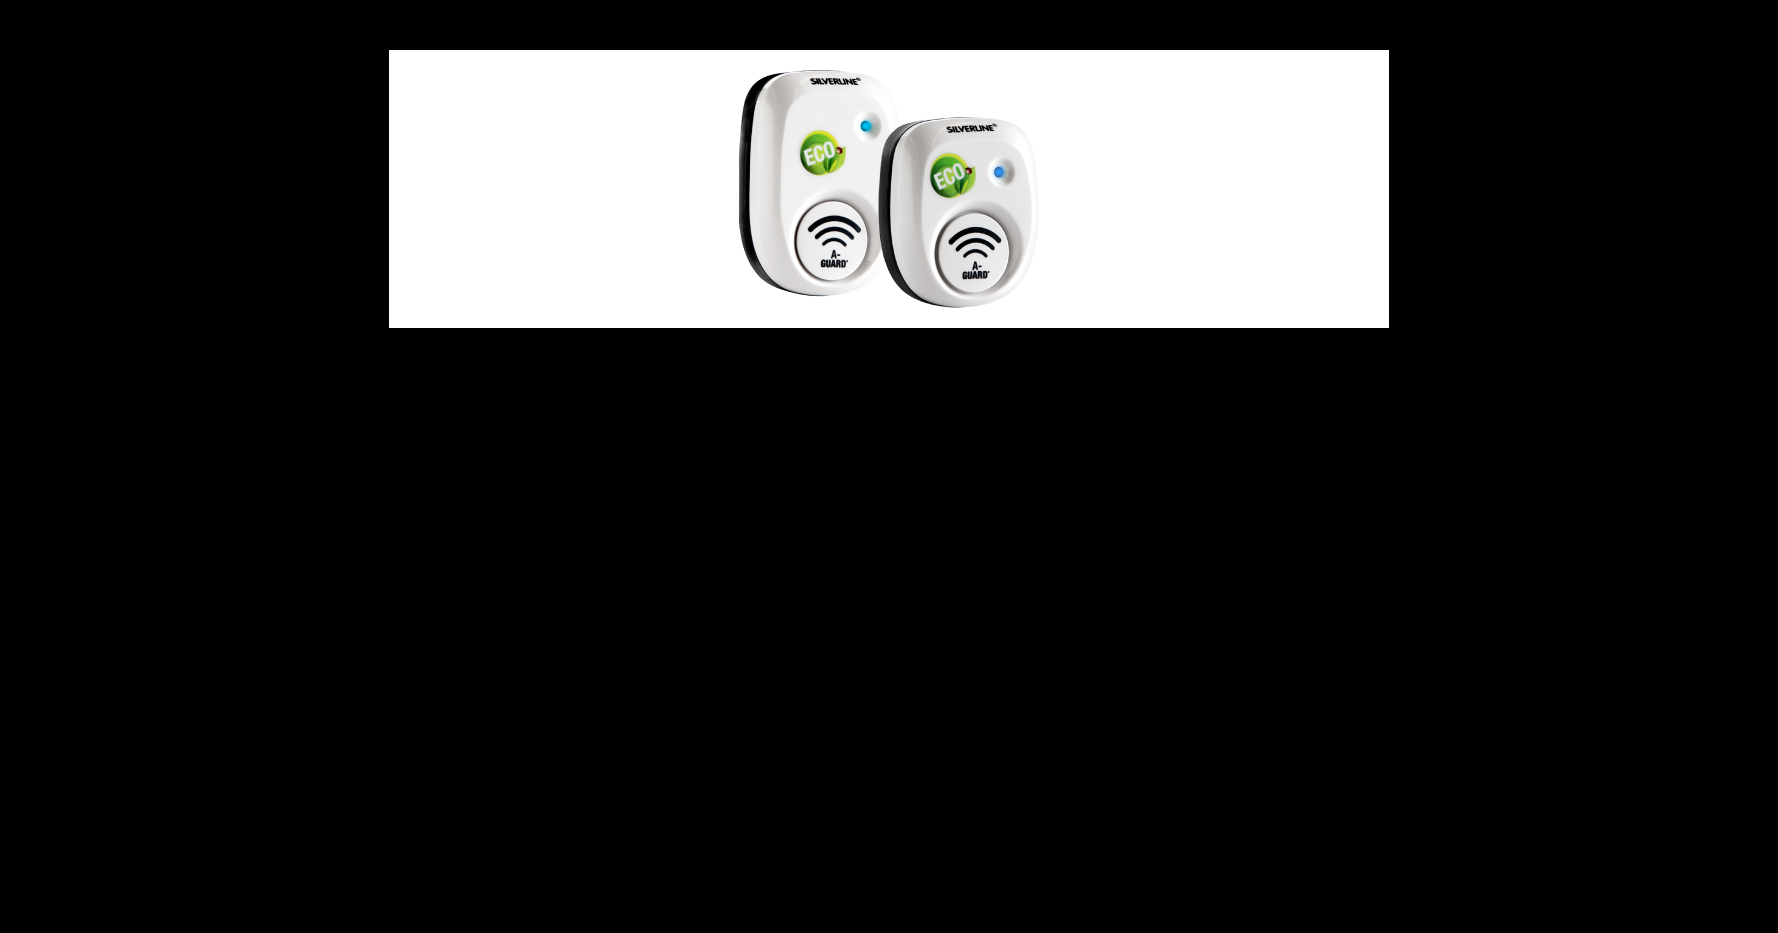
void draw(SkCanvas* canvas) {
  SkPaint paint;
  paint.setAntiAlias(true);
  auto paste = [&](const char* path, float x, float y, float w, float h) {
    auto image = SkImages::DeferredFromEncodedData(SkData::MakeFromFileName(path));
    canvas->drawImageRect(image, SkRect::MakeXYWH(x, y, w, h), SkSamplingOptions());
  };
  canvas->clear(0xff000000);
  paint.setColor(0xffffffff);
  canvas->drawRect(SkRect::MakeXYWH(389, 50, 1000, 278), paint);
  paste("img/1.png", 739, 70, 300, 238);
}
